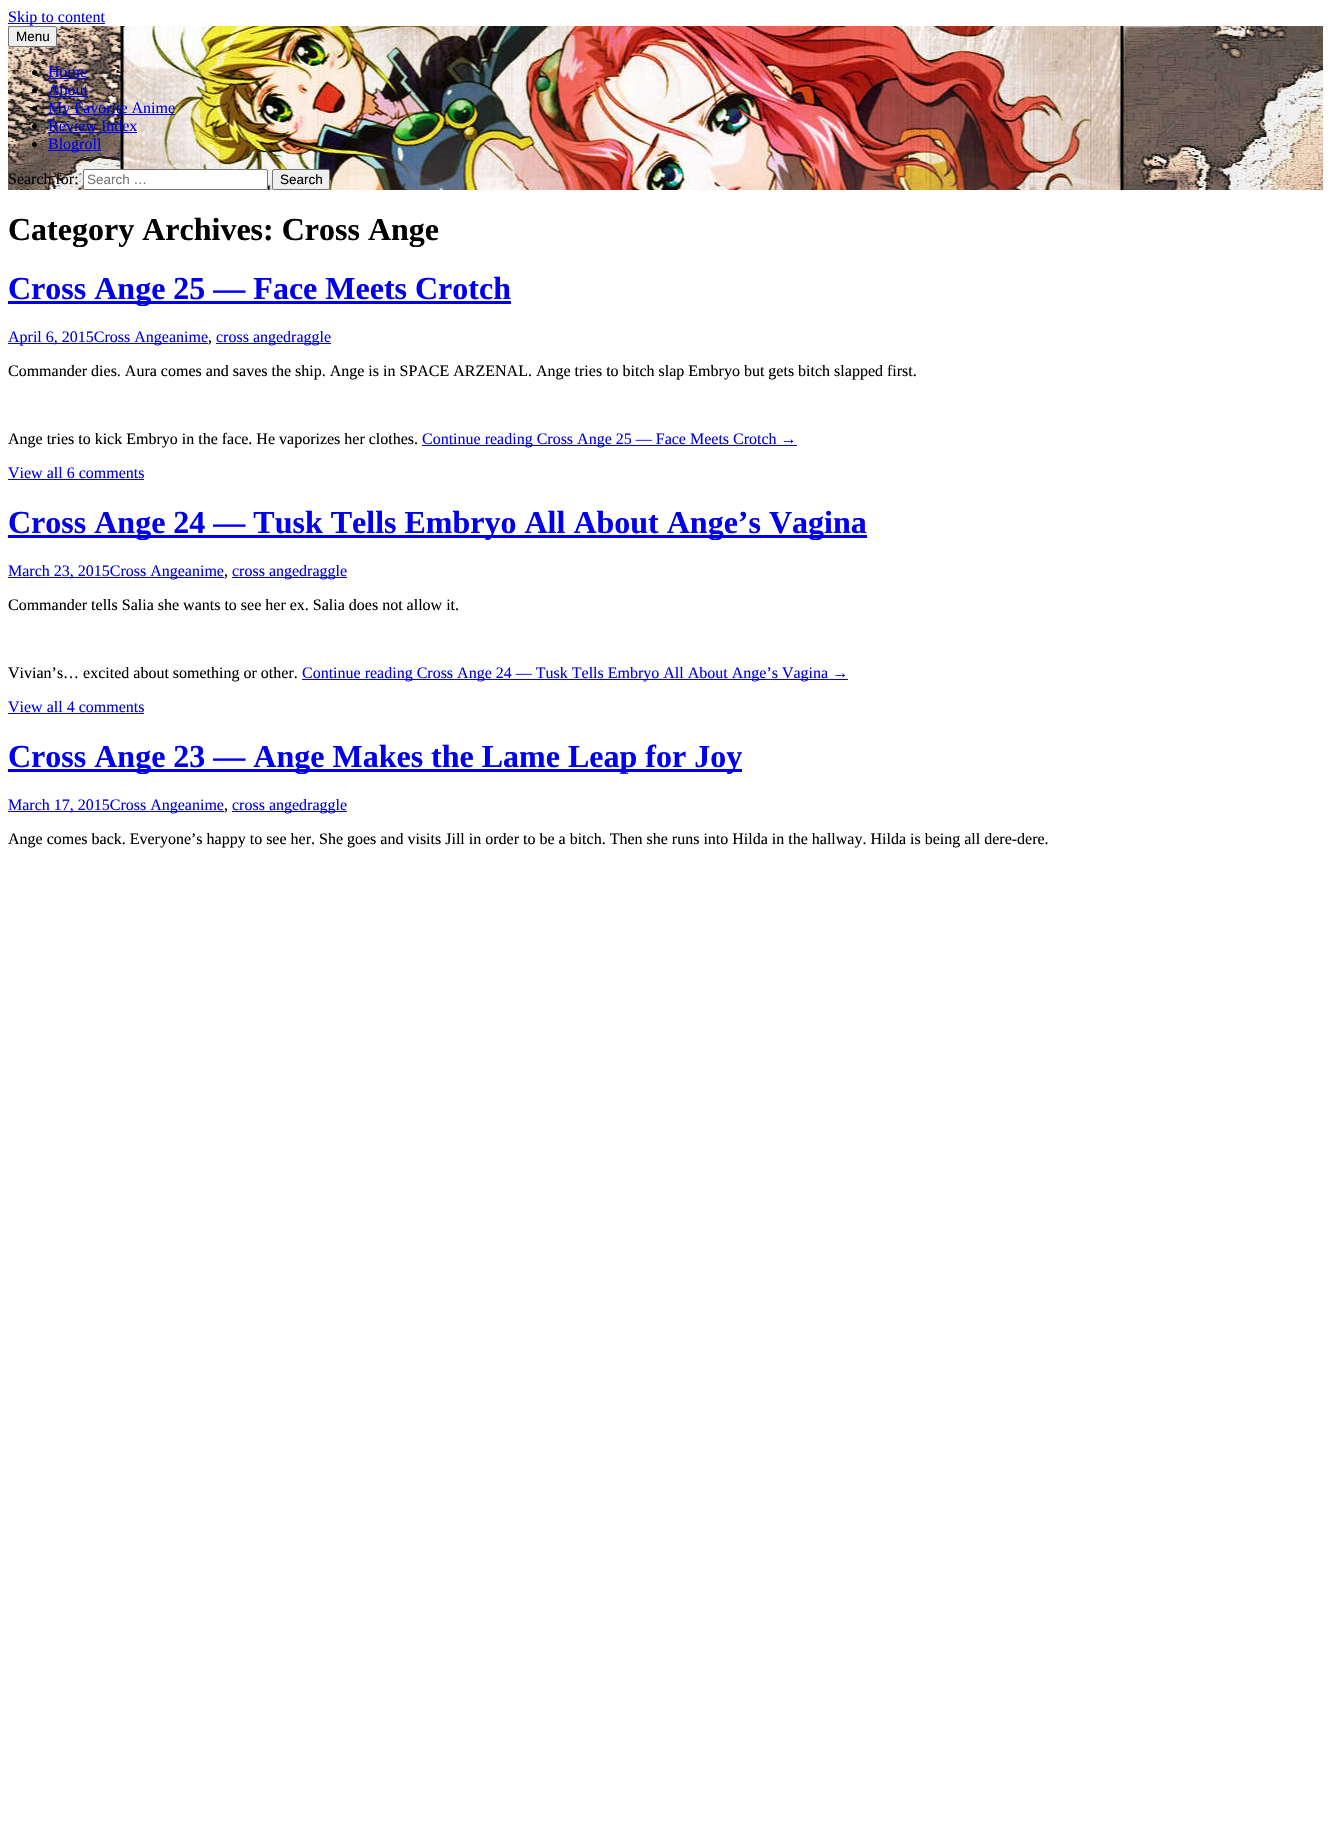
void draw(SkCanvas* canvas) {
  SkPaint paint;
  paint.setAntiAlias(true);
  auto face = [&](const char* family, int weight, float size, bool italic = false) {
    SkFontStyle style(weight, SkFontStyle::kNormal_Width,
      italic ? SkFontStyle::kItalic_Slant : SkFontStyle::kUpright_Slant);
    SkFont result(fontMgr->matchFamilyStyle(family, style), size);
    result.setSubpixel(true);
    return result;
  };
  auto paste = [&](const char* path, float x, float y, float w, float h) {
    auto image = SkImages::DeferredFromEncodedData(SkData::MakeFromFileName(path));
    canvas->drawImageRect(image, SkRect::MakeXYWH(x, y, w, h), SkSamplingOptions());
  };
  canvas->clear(0xffffffff);
  paint.setColor(0xff0000ee);
  canvas->drawRect(SkRect::MakeXYWH(8, 23, 97, 1), paint);
  paste("img/1.png", 8, 26, 1315, 164);
  paint.setColor(0xffefefef);
  canvas->drawRoundRect(SkRect::MakeXYWH(8.5f, 26.5f, 48, 20), 1.5f, 1.5f, paint);
  paint.setStroke(true);
  paint.setStrokeWidth(1);
  paint.setColor(0xff767676);
  canvas->drawRoundRect(SkRect::MakeXYWH(8.5f, 26.5f, 48, 20), 1.5f, 1.5f, paint);
  paint.setStroke(false);
  paint.setColor(0xff000000);
  canvas->drawCircle(34.5f, 72.5f, 2.5f, paint);
  paint.setColor(0xff0000ee);
  canvas->drawRect(SkRect::MakeXYWH(48, 78, 39, 1), paint);
  paint.setColor(0xff000000);
  canvas->drawCircle(34.5f, 90.5f, 2.5f, paint);
  paint.setColor(0xff0000ee);
  canvas->drawRect(SkRect::MakeXYWH(48, 96, 40, 1), paint);
  paint.setColor(0xff000000);
  canvas->drawCircle(34.5f, 108.5f, 2.5f, paint);
  paint.setColor(0xff0000ee);
  canvas->drawRect(SkRect::MakeXYWH(48, 114, 127, 1), paint);
  paint.setColor(0xff000000);
  canvas->drawCircle(34.5f, 126.5f, 2.5f, paint);
  paint.setColor(0xff0000ee);
  canvas->drawRect(SkRect::MakeXYWH(48, 132, 89, 1), paint);
  paint.setColor(0xff000000);
  canvas->drawCircle(34.5f, 144.5f, 2.5f, paint);
  paint.setColor(0xff0000ee);
  canvas->drawRect(SkRect::MakeXYWH(48, 150, 53, 1), paint);
  paint.setColor(0xffffffff);
  canvas->drawRoundRect(SkRect::MakeXYWH(83.5f, 169.5f, 184, 20), 1.5f, 1.5f, paint);
  paint.setStroke(true);
  paint.setColor(0xff767676);
  canvas->drawRoundRect(SkRect::MakeXYWH(83.5f, 169.5f, 184, 20), 1.5f, 1.5f, paint);
  paint.setStroke(false);
  paint.setColor(0xffefefef);
  canvas->drawRoundRect(SkRect::MakeXYWH(272.5f, 169.5f, 57, 20), 1.5f, 1.5f, paint);
  paint.setStroke(true);
  paint.setColor(0xff767676);
  canvas->drawRoundRect(SkRect::MakeXYWH(272.5f, 169.5f, 57, 20), 1.5f, 1.5f, paint);
  paint.setStroke(false);
  {
    const struct { float x, y, w, h; SkColor color; } items[] = {
      {8, 301, 503, 3, 0xff0000ee},
      {8, 343, 200, 1, 0xff0000ee},
      {216, 343, 115, 1, 0xff0000ee},
      {422, 445, 375, 1, 0xff0000ee},
      {8, 479, 136, 1, 0xff0000ee},
      {8, 535, 859, 3, 0xff0000ee},
      {8, 577, 216, 1, 0xff0000ee},
      {232, 577, 115, 1, 0xff0000ee},
      {302, 679, 546, 1, 0xff0000ee},
      {8, 713, 136, 1, 0xff0000ee},
      {8, 769, 734, 3, 0xff0000ee},
      {8, 811, 216, 1, 0xff0000ee},
      {232, 811, 115, 1, 0xff0000ee},
    };
    for (auto [x, y, w, h, color] : items) {
      paint.setColor(color);
      canvas->drawRect(SkRect::MakeXYWH(x, y, w, h), paint);
    }
  }
  auto f0 = face("Liberation Serif", 400, 16);
  canvas->drawString("Skip to content", 8, 22, f0, paint);
  auto f1 = face("Liberation Sans", 400, 13.5f);
  paint.setColor(0xff000000);
  canvas->drawString("Menu", 16, 41, f1, paint);
  paint.setColor(0xff0000ee);
  {
    const struct { const char* s; float x, y; } items[] = {
      {"Home", 48, 77},
      {"About", 48, 95},
      {"My Favorite Anime", 48, 113},
      {"Review Index", 48, 131},
      {"Blogroll", 48, 149},
    };
    for (auto [s, x, y] : items) {
      canvas->drawString(s, x, y, f0, paint);
    }
  }
  paint.setColor(0xff000000);
  canvas->drawString("Search for:", 8, 184, f0, paint);
  paint.setColor(0xff757575);
  canvas->drawString("Search …", 87, 184, f1, paint);
  paint.setColor(0xff000000);
  canvas->drawString("Search", 280, 184, f1, paint);
  auto f2 = face("Liberation Serif", 700, 32);
  canvas->drawString("Category Archives: Cross Ange", 8, 240, f2, paint);
  paint.setColor(0xff0000ee);
  canvas->drawString("Cross Ange 25 — Face Meets Crotch", 8, 299, f2, paint);
  canvas->drawString("April 6, 2015Cross Angeanime", 8, 342, f0, paint);
  paint.setColor(0xff000000);
  canvas->drawString(",", 208, 342, f0, paint);
  paint.setColor(0xff0000ee);
  canvas->drawString("cross angedraggle", 216, 342, f0, paint);
  paint.setColor(0xff000000);
  canvas->drawString("Commander dies. Aura comes and saves the ship. Ange is in SPACE ARZENAL. Ange tries to bitch slap Embryo but gets bitch slapped first.", 8, 376, f0, paint);
  canvas->drawString("Ange tries to kick Embryo in the face. He vaporizes her clothes.", 8, 444, f0, paint);
  paint.setColor(0xff0000ee);
  canvas->drawString("Continue reading Cross Ange 25 — Face Meets Crotch →", 422, 444, f0, paint);
  canvas->drawString("View all 6 comments", 8, 478, f0, paint);
  canvas->drawString("Cross Ange 24 — Tusk Tells Embryo All About Ange’s Vagina", 8, 533, f2, paint);
  canvas->drawString("March 23, 2015Cross Angeanime", 8, 576, f0, paint);
  paint.setColor(0xff000000);
  canvas->drawString(",", 224, 576, f0, paint);
  paint.setColor(0xff0000ee);
  canvas->drawString("cross angedraggle", 232, 576, f0, paint);
  paint.setColor(0xff000000);
  canvas->drawString("Commander tells Salia she wants to see her ex. Salia does not allow it.", 8, 610, f0, paint);
  canvas->drawString("Vivian’s… excited about something or other.", 8, 678, f0, paint);
  paint.setColor(0xff0000ee);
  canvas->drawString("Continue reading Cross Ange 24 — Tusk Tells Embryo All About Ange’s Vagina →", 302, 678, f0, paint);
  canvas->drawString("View all 4 comments", 8, 712, f0, paint);
  canvas->drawString("Cross Ange 23 — Ange Makes the Lame Leap for Joy", 8, 767, f2, paint);
  canvas->drawString("March 17, 2015Cross Angeanime", 8, 810, f0, paint);
  paint.setColor(0xff000000);
  canvas->drawString(",", 224, 810, f0, paint);
  paint.setColor(0xff0000ee);
  canvas->drawString("cross angedraggle", 232, 810, f0, paint);
  paint.setColor(0xff000000);
  canvas->drawString("Ange comes back. Everyone’s happy to see her. She goes and visits Jill in order to be a bitch. Then she runs into Hilda in the hallway. Hilda is being all dere-dere.", 8, 844, f0, paint);
}
